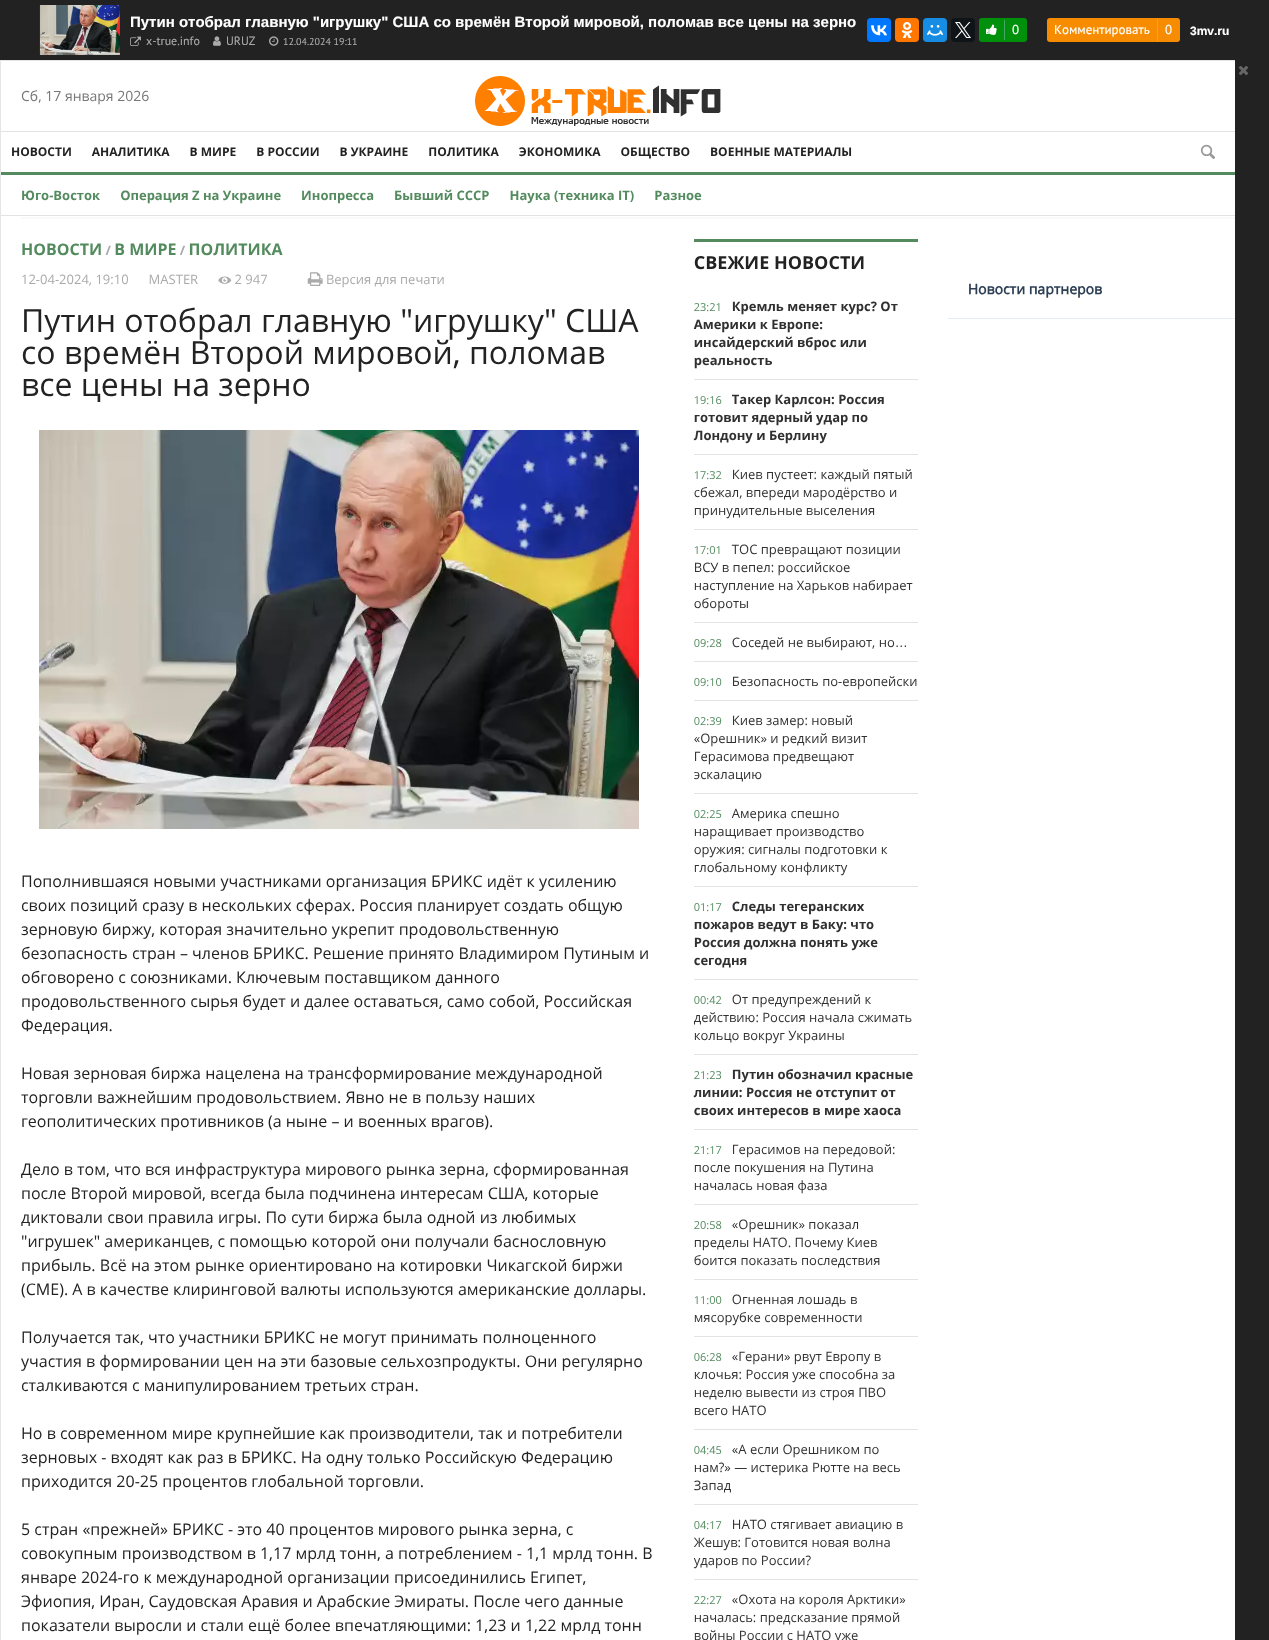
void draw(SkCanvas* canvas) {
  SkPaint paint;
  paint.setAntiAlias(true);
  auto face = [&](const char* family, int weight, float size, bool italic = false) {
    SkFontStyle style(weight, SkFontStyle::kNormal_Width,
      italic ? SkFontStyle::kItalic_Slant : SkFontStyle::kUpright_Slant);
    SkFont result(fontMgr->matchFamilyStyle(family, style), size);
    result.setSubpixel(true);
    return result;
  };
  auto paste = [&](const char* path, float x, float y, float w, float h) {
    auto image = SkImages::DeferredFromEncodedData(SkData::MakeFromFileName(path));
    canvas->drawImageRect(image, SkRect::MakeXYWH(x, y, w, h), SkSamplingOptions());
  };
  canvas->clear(0xffe6e5e5);
  paint.setColor(0xff222222);
  canvas->drawRect(SkRect::MakeXYWH(0, 0, 1269, 60), paint);
  paste("img/1.png", 39, 5, 81, 50);
  paint.setColor(0xff0077ff);
  canvas->drawRoundRect(SkRect::MakeXYWH(867, 18, 24, 24), 4, 4, paint);
  paste("img/2.png", 871, 25, 16, 11);
  paint.setColor(0xffff7700);
  canvas->drawRoundRect(SkRect::MakeXYWH(895, 18, 24, 24), 4, 4, paint);
  paste("img/3.png", 901, 22, 12, 16);
  paint.setColor(0xff168de2);
  canvas->drawRoundRect(SkRect::MakeXYWH(923, 18, 24, 24), 4, 4, paint);
  paste("img/4.png", 927, 25, 16, 11);
  paint.setColor(0xff0f1419);
  canvas->drawRoundRect(SkRect::MakeXYWH(951, 18, 24, 24), 4, 4, paint);
  paste("img/5.png", 955, 22, 16, 16);
  paint.setColor(0xff00900c);
  canvas->drawRoundRect(SkRect::MakeXYWH(979, 18, 48, 24), 3, 3, paint);
  paint.setColor(0xff46a764);
  canvas->drawRect(SkRect::MakeXYWH(1004, 20, 1, 20), paint);
  paste("img/6.png", 986, 24, 11, 11);
  paint.setColor(0xfff88c00);
  canvas->drawRoundRect(SkRect::MakeXYWH(1047, 18, 133, 24), 3, 3, paint);
  paint.setColor(0xffeaa04c);
  canvas->drawRect(SkRect::MakeXYWH(1157, 19, 1, 22), paint);
  paste("img/7.png", 130, 36, 11, 10);
  paste("img/8.png", 213, 36, 8, 10);
  paste("img/9.png", 269, 36, 10, 10);
  paste("img/10.png", 1, 61, 1234, 1579);
  paint.setColor(0xff222222);
  canvas->drawRect(SkRect::MakeXYWH(1235, 60, 34, 1580), paint);
  paste("img/11.png", 1239, 66, 9, 9);
  auto f0 = face("Liberation Sans", 700, 15);
  paint.setColor(0xffffffff);
  canvas->drawString("Путин отобрал главную \"игрушку\" США со времён Второй мировой, поломав все цены на зерно", 130, 27, f0, paint);
  auto f1 = face("PT Sans", 400, 13);
  {
    const struct { const char* s; float x, y; } items[] = {
      {"0", 1012, 34},
      {"Комментировать", 1054, 34},
      {"0", 1165, 34},
    };
    for (auto [s, x, y] : items) {
      canvas->drawString(s, x, y, f1, paint);
    }
  }
  auto f2 = face("Liberation Sans", 700, 12);
  canvas->drawString("3mv.ru", 1190, 35, f2, paint);
  auto f3 = face("PT Sans", 400, 12);
  paint.setColor(0xffaaaaaa);
  canvas->drawString("x-true.info", 146, 45, f3, paint);
  canvas->drawString("URUZ", 226, 45, f3, paint);
  auto f4 = face("PT Sans", 400, 10);
  canvas->drawString("12.04.2024 19:11", 283, 45, f4, paint);
}
